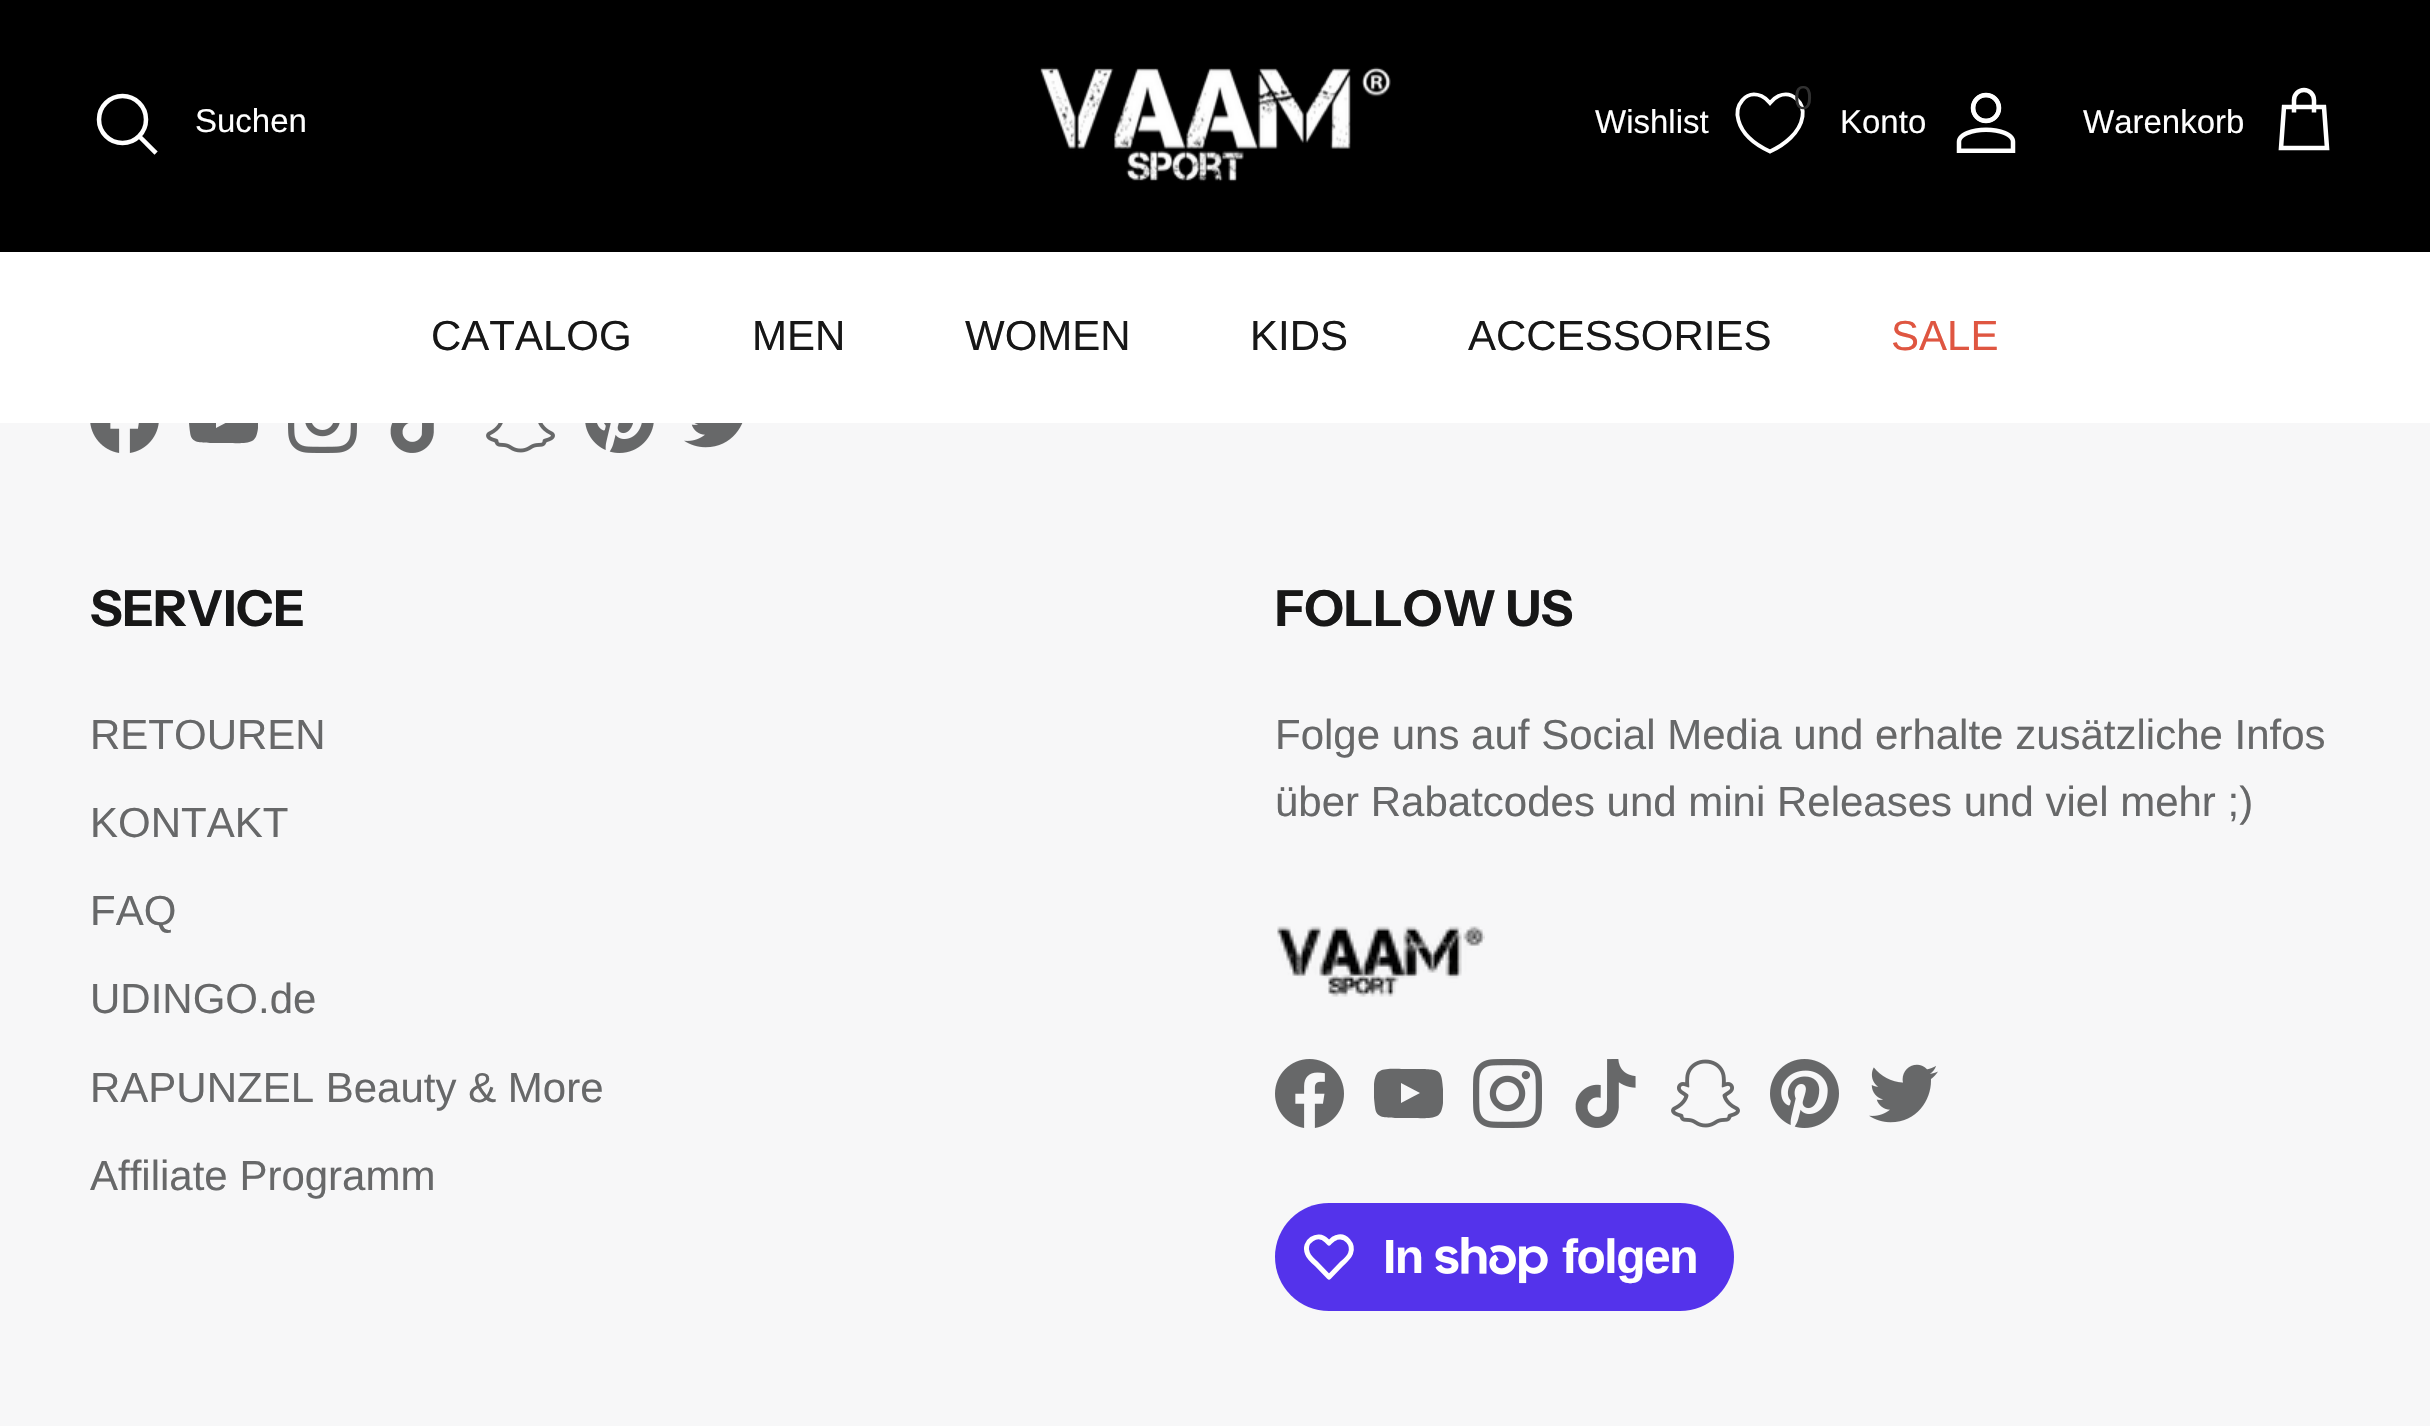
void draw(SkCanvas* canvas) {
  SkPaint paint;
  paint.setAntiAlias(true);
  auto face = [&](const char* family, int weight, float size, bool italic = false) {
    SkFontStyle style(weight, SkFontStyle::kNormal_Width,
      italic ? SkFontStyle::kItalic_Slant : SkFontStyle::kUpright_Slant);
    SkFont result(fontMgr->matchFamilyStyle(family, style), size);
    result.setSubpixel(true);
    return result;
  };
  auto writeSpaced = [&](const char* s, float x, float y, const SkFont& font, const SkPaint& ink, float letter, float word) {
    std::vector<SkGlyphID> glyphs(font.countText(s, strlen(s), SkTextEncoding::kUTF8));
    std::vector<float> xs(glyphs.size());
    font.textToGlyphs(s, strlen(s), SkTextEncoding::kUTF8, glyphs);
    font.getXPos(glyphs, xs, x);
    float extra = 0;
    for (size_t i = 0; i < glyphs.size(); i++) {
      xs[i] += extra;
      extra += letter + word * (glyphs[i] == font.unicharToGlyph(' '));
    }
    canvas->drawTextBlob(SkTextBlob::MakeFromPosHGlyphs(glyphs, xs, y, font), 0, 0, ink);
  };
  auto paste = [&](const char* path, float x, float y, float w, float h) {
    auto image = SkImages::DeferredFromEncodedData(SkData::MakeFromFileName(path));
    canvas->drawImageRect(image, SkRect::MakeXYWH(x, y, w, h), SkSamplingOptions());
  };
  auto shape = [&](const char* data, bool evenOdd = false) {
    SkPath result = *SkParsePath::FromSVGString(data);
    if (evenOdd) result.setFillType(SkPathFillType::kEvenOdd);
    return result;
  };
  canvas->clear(0xfff7f7f8);
  paint.setColor(0xff000000);
  canvas->drawRect(SkRect::MakeXYWH(0, 0, 2430, 252), paint);
  paint.setStroke(true);
  paint.setStrokeWidth(4.5f);
  paint.setColor(0xffffffff);
  canvas->drawCircle(122.5f, 119.5f, 23.5f, paint);
  paint.setStrokeCap(SkPaint::kSquare_Cap);
  canvas->drawPath(shape("M141 138L154.5 151.5"), paint);
  paste("img/1.png", 1040, 67, 351, 115);
  paint.setStrokeWidth(3.9f);
  paint.setStrokeCap(SkPaint::kButt_Cap);
  canvas->drawPath(shape("M1770 151.5C1757 145.5 1742.5 135 1738.5 120.5C1734 105.5 1745.5 89.5 1761.5 96C1765 97.5 1767.5 100 1770 103C1772.5 100 1775 97.5 1778.5 96C1792.5 90 1804.5 103 1802.5 116.5C1800 133 1784 145 1770 151.5Z"), paint);
  paste("img/2.png", 1956, 92, 60, 61);
  paint.setStrokeWidth(4.5f);
  canvas->drawPath(shape("M2314 112.5V100C2314 94.5 2309.5 90 2304 90C2298.5 90 2294 94.5 2294 100V112.5"), paint);
  canvas->drawPath(shape("M2284 107H2324L2327 148H2281Z"), paint);
  canvas->save();
  canvas->clipRect(SkRect::MakeXYWH(189, 384, 69, 69));
  paint.setStroke(false);
  paint.setColor(0xff676869);
  canvas->drawPath(shape("M216 428V408L235 418ZM257 405C256 394 249 395 240 394H218C213 394 200 393 195 396C186 400 189 425 190 432C191 444 201 442 210 443H229C234 443 247 444 252 441C261 437 258 412 257 405Z", true), paint);
  canvas->restore();
  paint.setColor(0xffffffff);
  canvas->drawRect(SkRect::MakeXYWH(0, 252, 2430, 171), paint);
  paste("img/3.png", 90, 423, 69, 30);
  paste("img/4.png", 288, 423, 69, 30);
  paste("img/5.png", 390, 423, 44, 30);
  paste("img/6.png", 486, 423, 69, 30);
  paste("img/7.png", 585, 423, 69, 30);
  paste("img/8.png", 684, 423, 59, 25);
  paste("img/9.png", 1277, 926, 208, 71);
  paste("img/10.png", 1275, 1059, 69, 69);
  canvas->save();
  canvas->clipRect(SkRect::MakeXYWH(1374, 1059, 69, 69));
  paint.setColor(0xff676869);
  canvas->drawPath(shape("M1401 1103V1083L1420 1093ZM1442 1080C1441 1069 1434 1070 1425 1069H1403C1398 1069 1385 1068 1380 1071C1371 1075 1374 1100 1375 1107C1376 1119 1386 1117 1395 1118H1414C1419 1118 1432 1119 1437 1116C1446 1112 1443 1087 1442 1080Z", true), paint);
  canvas->restore();
  paste("img/11.png", 1473, 1059, 69, 69);
  paste("img/12.png", 1575, 1059, 61, 69);
  paste("img/13.png", 1671, 1059, 69, 69);
  paste("img/14.png", 1770, 1059, 69, 69);
  paste("img/15.png", 1869, 1064, 69, 59);
  paint.setColor(0xff5433eb);
  canvas->drawRoundRect(SkRect::MakeXYWH(1275, 1203, 459, 108), 54, 54, paint);
  paint.setStroke(true);
  paint.setStrokeWidth(5);
  paint.setStrokeJoin(SkPaint::kRound_Join);
  paint.setColor(0xffffffff);
  canvas->drawPath(shape("M1326.5 1240.5L1329 1243C1331 1241 1333 1238.5 1336.5 1237.5C1345.5 1234.5 1354 1244 1350.5 1253.5C1349 1257.5 1345 1261 1341.5 1264L1329 1277L1316.5 1264C1313 1261 1309 1257.5 1307.5 1253.5C1302.5 1241.5 1317.5 1231.5 1326.5 1240.5Z"), paint);
  paste("img/16.png", 1435, 1237, 113, 47);
  auto f0 = face("Arimo", 400, 33);
  paint.setStroke(false);
  canvas->drawString("Suchen", 195, 132, f0, paint);
  paint.setColor(0xff313131);
  canvas->drawString("0", 1794, 109, f0, paint);
  paint.setColor(0xffffffff);
  {
    const struct { const char* s; float x, y; } items[] = {
      {"Wishlist", 1595, 133},
      {"Konto", 1840, 133},
      {"Warenkorb", 2083, 133},
    };
    for (auto [s, x, y] : items) {
      canvas->drawString(s, x, y, f0, paint);
    }
  }
  auto f1 = face("Arimo", 400, 42);
  paint.setColor(0xff171717);
  {
    const struct { const char* s; float x, y; } items[] = {
      {"CATALOG", 431, 350},
      {"MEN", 752, 350},
      {"WOMEN", 965, 350},
      {"KIDS", 1250, 350},
      {"ACCESSORIES", 1468, 350},
    };
    for (auto [s, x, y] : items) {
      canvas->drawString(s, x, y, f1, paint);
    }
  }
  paint.setColor(0xffdf5641);
  canvas->drawString("SALE", 1891, 350, f1, paint);
  auto f2 = face("Instrument Sans", 700, 49.75f);
  paint.setColor(0xff171717);
  canvas->drawString("SERVICE", 90, 626, f2, paint);
  paint.setColor(0xff676869);
  {
    const struct { const char* s; float x, y; } items[] = {
      {"RETOUREN", 90, 749},
      {"KONTAKT", 90, 837},
      {"FAQ", 90, 925},
      {"UDINGO.de", 90, 1013},
      {"RAPUNZEL Beauty & More", 90, 1102},
      {"Affiliate Programm", 90, 1190},
    };
    for (auto [s, x, y] : items) {
      canvas->drawString(s, x, y, f1, paint);
    }
  }
  paint.setColor(0xff171717);
  canvas->drawString("FOLLOW US", 1275, 626, f2, paint);
  paint.setColor(0xff676869);
  canvas->drawString("Folge uns auf Social Media und erhalte zusätzliche Infos", 1275, 749, f1, paint);
  canvas->drawString("über Rabatcodes und mini Releases und viel mehr ;)", 1275, 816, f1, paint);
  auto f3 = face("Liberation Sans", 700, 48);
  paint.setColor(0xffffffff);
  writeSpaced("In", 1383, 1273, f3, paint, -1.5f, 0);
  writeSpaced("folgen", 1562, 1273, f3, paint, -1.5f, 0);
}
